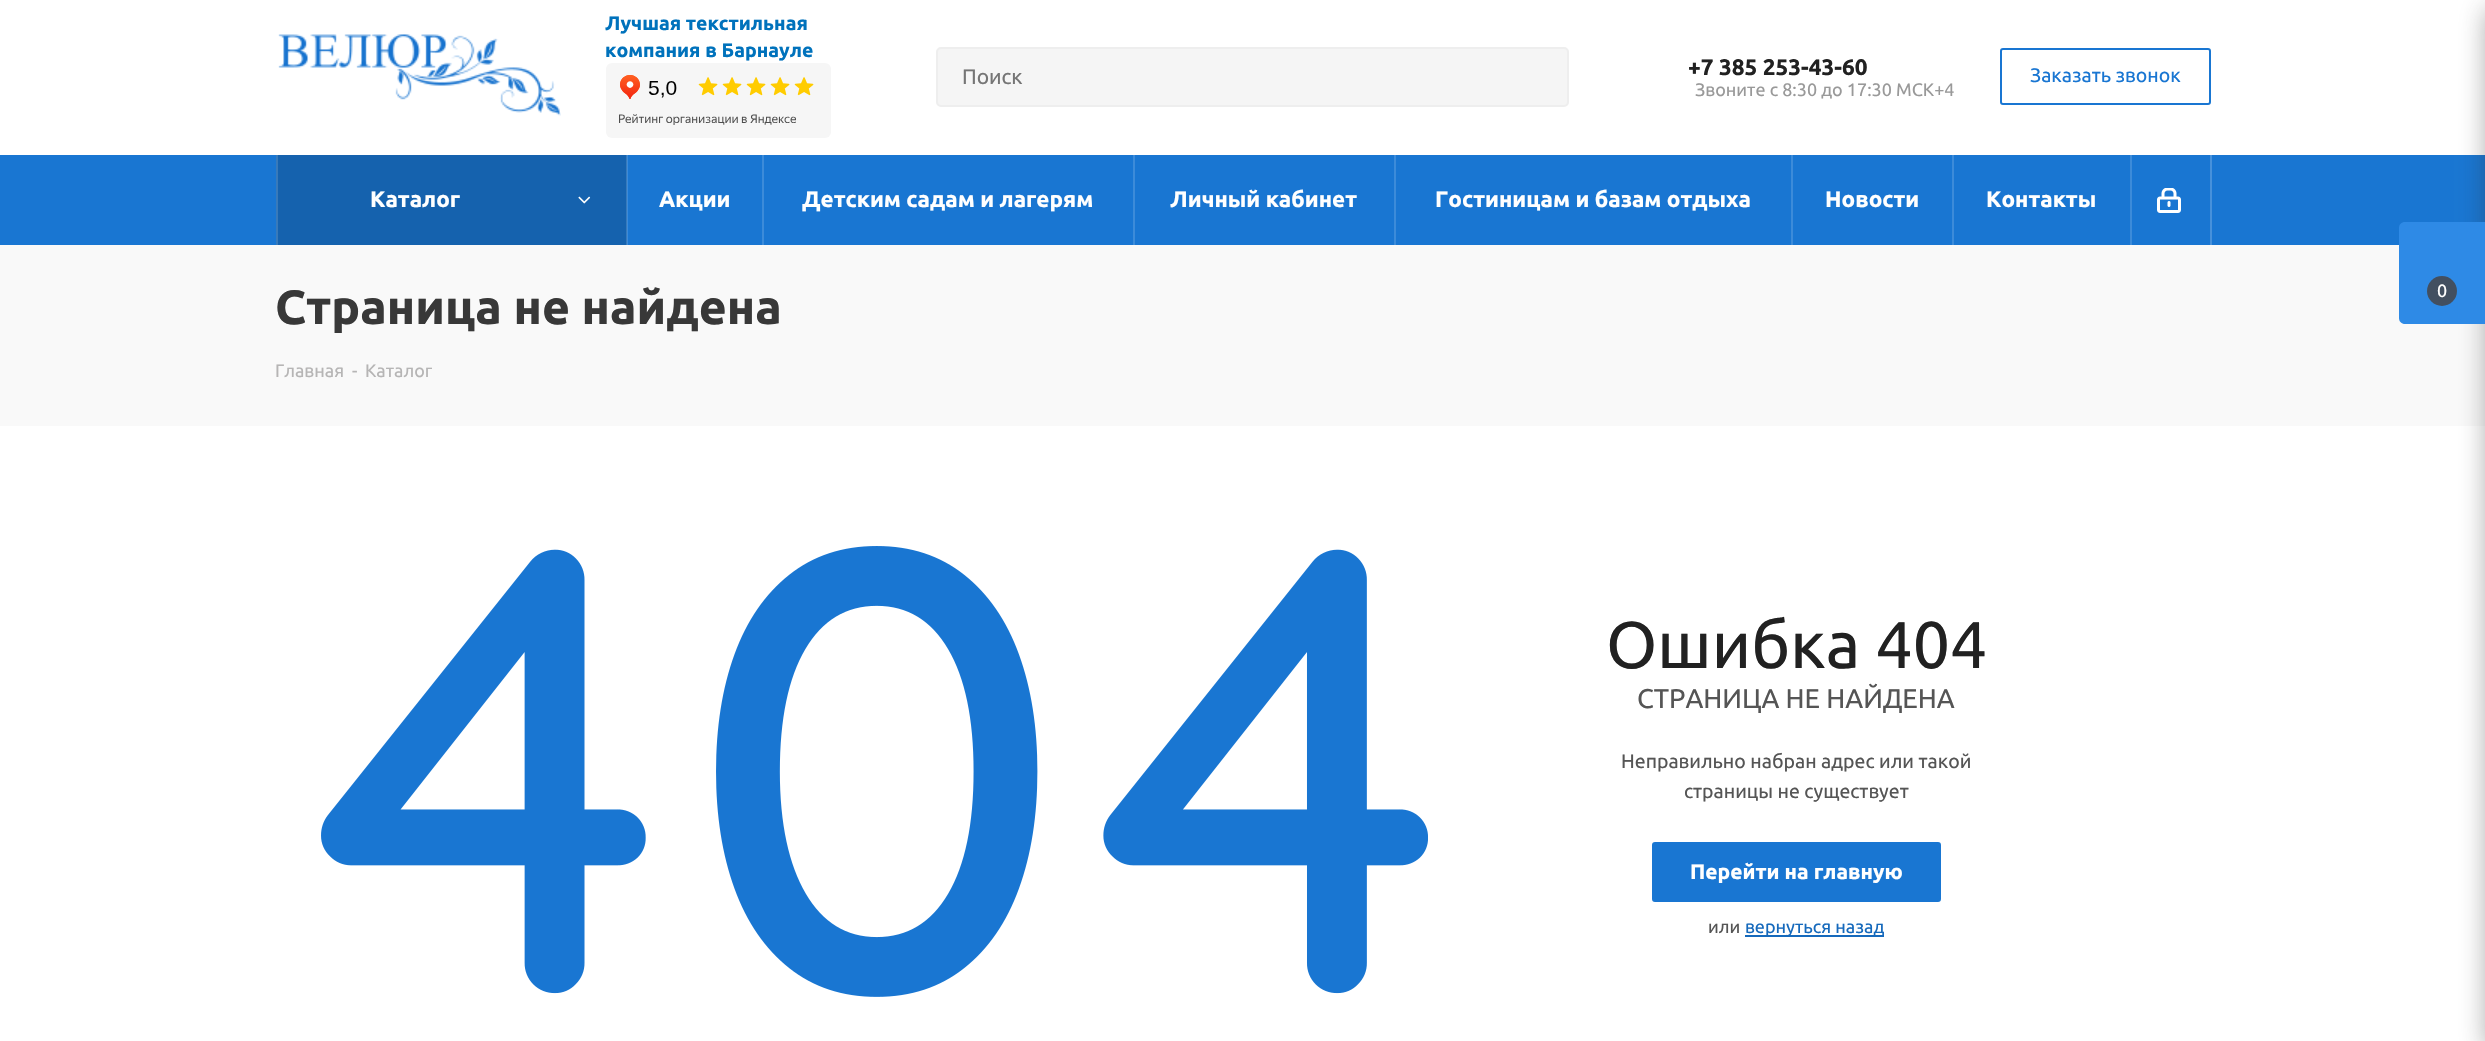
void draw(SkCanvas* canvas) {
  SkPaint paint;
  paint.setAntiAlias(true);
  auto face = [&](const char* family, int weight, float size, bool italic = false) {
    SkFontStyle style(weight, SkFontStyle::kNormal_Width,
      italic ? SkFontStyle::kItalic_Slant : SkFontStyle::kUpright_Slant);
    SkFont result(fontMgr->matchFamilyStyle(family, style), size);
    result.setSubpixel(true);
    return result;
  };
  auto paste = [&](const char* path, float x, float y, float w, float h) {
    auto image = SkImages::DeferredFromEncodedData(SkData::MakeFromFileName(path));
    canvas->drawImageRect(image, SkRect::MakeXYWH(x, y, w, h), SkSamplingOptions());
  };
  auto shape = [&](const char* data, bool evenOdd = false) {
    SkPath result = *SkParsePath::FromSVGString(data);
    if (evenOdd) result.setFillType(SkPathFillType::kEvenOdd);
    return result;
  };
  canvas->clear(0xffffffff);
  paint.setColor(0xff1773cf);
  canvas->drawRect(SkRect::MakeXYWH(278, 34, 283, 82), paint);
  paste("img/1.png", 276, 33, 285, 87);
  paste("img/2.png", 606, 63, 225, 75);
  paint.setColor(0xfff5f5f5);
  canvas->drawRoundRect(SkRect::MakeXYWH(937, 48, 631, 58), 4, 4, paint);
  paint.setStroke(true);
  paint.setStrokeWidth(2);
  paint.setColor(0xffeeeeee);
  canvas->drawRoundRect(SkRect::MakeXYWH(937, 48, 631, 58), 4, 4, paint);
  paint.setColor(0xff1976d2);
  canvas->drawRoundRect(SkRect::MakeXYWH(2001, 49, 209, 55), 2, 2, paint);
  paint.setStroke(false);
  {
    const struct { float x, y, w, h; SkColor color; } items[] = {
      {0, 155, 2485, 90, 0xff1976d2},
      {627, 155, 1, 90, 0xff3c8bd9},
      {276, 155, 2, 90, 0xff387aba},
      {278, 155, 348, 90, 0xff1562ae},
      {626, 155, 1, 90, 0xff387aba},
    };
    for (auto [x, y, w, h, color] : items) {
      paint.setColor(color);
      canvas->drawRect(SkRect::MakeXYWH(x, y, w, h), paint);
    }
  }
  paste("img/3.png", 578, 196, 13, 8);
  {
    const struct { float x, y, w, h; SkColor color; } items[] = {
      {762, 155, 2, 90, 0xff3c8bd9},
      {1133, 155, 2, 90, 0xff3c8bd9},
      {1394, 155, 2, 90, 0xff3c8bd9},
      {1791, 155, 2, 90, 0xff3c8bd9},
      {1952, 155, 2, 90, 0xff3c8bd9},
      {2130, 155, 2, 90, 0xff3c8bd9},
      {2210, 155, 2, 90, 0xff4791db},
    };
    for (auto [x, y, w, h, color] : items) {
      paint.setColor(color);
      canvas->drawRect(SkRect::MakeXYWH(x, y, w, h), paint);
    }
  }
  paste("img/4.png", 2157, 188, 24, 25);
  paint.setColor(0xfff9f9f9);
  canvas->drawRect(SkRect::MakeXYWH(0, 245, 2485, 181), paint);
  paste("img/5.png", 321, 546, 1107, 451);
  paint.setColor(0xff1976d2);
  canvas->drawRoundRect(SkRect::MakeXYWH(1653, 843, 287, 58), 2, 2, paint);
  paint.setStroke(true);
  canvas->drawRoundRect(SkRect::MakeXYWH(1653, 843, 287, 58), 2, 2, paint);
  paint.setStroke(false);
  paint.setColor(0xff1569bc);
  canvas->drawRect(SkRect::MakeXYWH(1745, 935, 139, 2), paint);
  paint.setColor(0x662c2c2c);
  paint.setMaskFilter(SkMaskFilter::MakeBlur(kNormal_SkBlurStyle, 13.5f));
  canvas->drawRoundRect(SkRect::MakeXYWH(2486, 9, 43, 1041), 3, 3, paint);
  paint.setMaskFilter(nullptr);
  paint.setColor(0xff2e8ae6);
  canvas->drawPath(shape("M2405 222H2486V324H2405C2401.5 324 2399 321.5 2399 318V228C2399 224.5 2401.5 222 2405 222Z"), paint);
  paint.setColor(0xff424f60);
  canvas->drawCircle(2442, 291, 15, paint);
  auto f0 = face("Ubuntu", 700, 19.5f);
  paint.setColor(0xff0072bc);
  canvas->drawString("Лучшая текстильная", 605, 30, f0, paint);
  canvas->drawString("компания в Барнауле", 605, 57, f0, paint);
  auto f1 = face("Ubuntu", 400, 21);
  paint.setColor(0xff757575);
  canvas->drawString("Поиск", 962, 84, f1, paint);
  auto f2 = face("Ubuntu", 700, 22.5f);
  paint.setColor(0xff212121);
  canvas->drawString("+7 385 253-43-60", 1688, 75, f2, paint);
  auto f3 = face("Ubuntu", 400, 18);
  paint.setColor(0xff999999);
  canvas->drawString("Звоните с 8:30 до 17:30 МСК+4", 1695, 96, f3, paint);
  auto f4 = face("Ubuntu", 400, 19.5f);
  paint.setColor(0xff1976d2);
  canvas->drawString("Заказать звонок", 2030, 82, f4, paint);
  paint.setColor(0xffffffff);
  {
    const struct { const char* s; float x, y; } items[] = {
      {"Каталог", 370, 207},
      {"Акции", 659, 207},
      {"Детским садам и лагерям", 802, 207},
      {"Личный кабинет", 1170, 207},
      {"Гостиницам и базам отдыха", 1435, 207},
      {"Новости", 1825, 207},
      {"Контакты", 1986, 207},
    };
    for (auto [s, x, y] : items) {
      canvas->drawString(s, x, y, f2, paint);
    }
  }
  auto f5 = face("Ubuntu", 700, 48);
  paint.setColor(0xff383838);
  canvas->drawString("Страница не найдена", 275, 324, f5, paint);
  paint.setColor(0xffb6b5b5);
  {
    const struct { const char* s; float x, y; } items[] = {
      {"Главная", 275, 377},
      {"-", 352, 377},
      {"Каталог", 365, 377},
    };
    for (auto [s, x, y] : items) {
      canvas->drawString(s, x, y, f3, paint);
    }
  }
  auto f6 = face("Ubuntu", 400, 66);
  paint.setColor(0xff212121);
  canvas->drawString("Ошибка 404", 1606, 668, f6, paint);
  auto f7 = face("Ubuntu", 400, 27);
  paint.setColor(0xff555555);
  canvas->drawString("СТРАНИЦА НЕ НАЙДЕНА", 1637, 708, f7, paint);
  canvas->drawString("Неправильно набран адрес или такой", 1621, 768, f4, paint);
  canvas->drawString("страницы не существует", 1684, 798, f4, paint);
  auto f8 = face("Ubuntu", 700, 21);
  paint.setColor(0xffffffff);
  canvas->drawString("Перейти на главную", 1690, 879, f8, paint);
  paint.setColor(0xff555555);
  canvas->drawString("или", 1708, 933, f3, paint);
  paint.setColor(0xff1569bc);
  canvas->drawString("вернуться назад", 1745, 933, f3, paint);
  paint.setColor(0xffffffff);
  canvas->drawString("0", 2437, 297, f3, paint);
}
